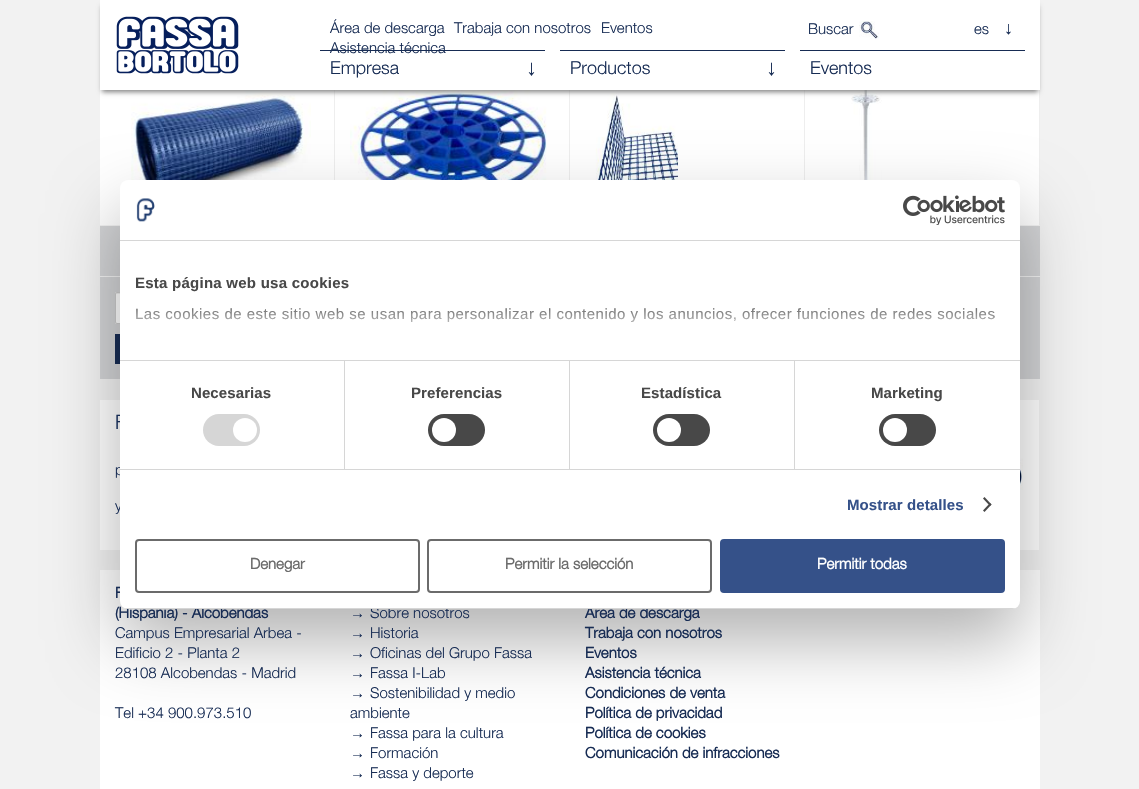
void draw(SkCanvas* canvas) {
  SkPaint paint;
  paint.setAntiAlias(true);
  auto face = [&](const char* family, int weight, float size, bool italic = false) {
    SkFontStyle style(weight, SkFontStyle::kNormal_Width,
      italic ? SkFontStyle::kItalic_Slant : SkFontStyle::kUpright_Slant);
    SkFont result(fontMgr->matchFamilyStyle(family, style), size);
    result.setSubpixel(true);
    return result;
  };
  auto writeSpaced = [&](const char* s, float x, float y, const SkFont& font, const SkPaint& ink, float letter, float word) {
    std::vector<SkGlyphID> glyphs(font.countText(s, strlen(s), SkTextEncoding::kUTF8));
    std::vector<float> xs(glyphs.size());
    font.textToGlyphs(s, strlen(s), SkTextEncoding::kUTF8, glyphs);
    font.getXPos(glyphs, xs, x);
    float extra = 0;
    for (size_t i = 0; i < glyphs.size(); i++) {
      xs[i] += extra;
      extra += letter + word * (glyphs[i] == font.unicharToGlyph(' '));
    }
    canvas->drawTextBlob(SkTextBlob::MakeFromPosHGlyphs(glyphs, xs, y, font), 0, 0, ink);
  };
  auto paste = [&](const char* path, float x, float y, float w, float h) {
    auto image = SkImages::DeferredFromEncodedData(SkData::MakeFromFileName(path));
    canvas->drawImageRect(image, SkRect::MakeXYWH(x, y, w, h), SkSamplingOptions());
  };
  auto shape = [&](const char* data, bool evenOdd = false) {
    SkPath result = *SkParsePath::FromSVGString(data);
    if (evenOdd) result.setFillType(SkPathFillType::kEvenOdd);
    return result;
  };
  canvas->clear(0xfff2f2f2);
  paint.setColor(0xffffffff);
  canvas->drawRect(SkRect::MakeXYWH(100, 90, 234, 135), paint);
  paint.setColor(0xffeeeeee);
  canvas->drawRect(SkRect::MakeXYWH(334, 90, 1, 90), paint);
  paste("img/3.png", 131, 90, 180, 90);
  paint.setColor(0xffffffff);
  canvas->drawRect(SkRect::MakeXYWH(335, 90, 234, 90), paint);
  paint.setColor(0xffeeeeee);
  canvas->drawRect(SkRect::MakeXYWH(569, 90, 1, 90), paint);
  paste("img/4.png", 350, 90, 197, 90);
  paint.setColor(0xffffffff);
  canvas->drawRect(SkRect::MakeXYWH(570, 90, 234, 90), paint);
  paint.setColor(0xffeeeeee);
  canvas->drawRect(SkRect::MakeXYWH(804, 90, 1, 90), paint);
  paste("img/5.png", 585, 93, 93, 87);
  paint.setColor(0xffffffff);
  canvas->drawRect(SkRect::MakeXYWH(805, 90, 234, 135), paint);
  paint.setColor(0xffeeeeee);
  canvas->drawRect(SkRect::MakeXYWH(1039, 90, 1, 135), paint);
  paste("img/6.png", 851, 90, 31, 90);
  paint.setColor(0xff808080);
  paint.setMaskFilter(SkMaskFilter::MakeBlur(kNormal_SkBlurStyle, 2.5f));
  canvas->drawRect(SkRect::MakeXYWH(102, 6, 936, 86), paint);
  paint.setMaskFilter(nullptr);
  paint.setColor(0xffffffff);
  canvas->drawRect(SkRect::MakeXYWH(100, 0, 940, 90), paint);
  paste("img/1.png", 116, 16, 123, 58);
  paste("img/2.png", 859, 21, 20, 19);
  {
    const struct { float x, y, w, h; SkColor color; } items[] = {
      {320, 50, 225, 1, 0xff172c54},
      {560, 50, 225, 1, 0xff172c54},
      {800, 50, 225, 1, 0xff172c54},
      {100, 226, 940, 50, 0xffd2d3d5},
      {100, 277, 940, 102, 0xffd2d3d5},
    };
    for (auto [x, y, w, h, color] : items) {
      paint.setColor(color);
      canvas->drawRect(SkRect::MakeXYWH(x, y, w, h), paint);
    }
  }
  paint.setColor(0xffffffff);
  canvas->drawRoundRect(SkRect::MakeXYWH(115, 292, 210, 32), 2, 2, paint);
  paint.setColor(0xffececec);
  canvas->drawPath(shape("M117 294H324V295V293H323H117C116 293 116 294 116 295C116 294 116 294 117 294Z"), paint);
  paint.setStroke(true);
  paint.setStrokeWidth(1);
  paint.setColor(0xffcccccc);
  canvas->drawRoundRect(SkRect::MakeXYWH(115.5f, 292.5f, 209, 31), 1.5f, 1.5f, paint);
  paint.setStroke(false);
  {
    const struct { float x, y, w, h; SkColor color; } items[] = {
      {115, 334, 5, 30, 0xff172c54},
      {100, 400, 20, 150, 0xffffffff},
      {1020, 400, 19, 150, 0xffffffff},
    };
    for (auto [x, y, w, h, color] : items) {
      paint.setColor(color);
      canvas->drawRect(SkRect::MakeXYWH(x, y, w, h), paint);
    }
  }
  paste("img/7.png", 1020, 415, 3, 87);
  canvas->drawRect(SkRect::MakeXYWH(100, 570, 940, 219), paint);
  paint.setColor(0x4d000000);
  paint.setMaskFilter(SkMaskFilter::MakeBlur(kNormal_SkBlurStyle, 34));
  canvas->drawRoundRect(SkRect::MakeXYWH(120, 212, 900, 429), 8, 8, paint);
  paint.setMaskFilter(nullptr);
  auto f0 = face("Helvetica", 300, 15);
  paint.setColor(0xff172c54);
  {
    const struct { const char* s; float x, y; } items[] = {
      {"Área de descarga", 330, 33},
      {"Trabaja con nosotros", 454, 33},
      {"Eventos", 601, 33},
      {"Asistencia técnica", 330, 53},
      {"Buscar", 808, 34},
      {"es", 974, 34},
    };
    for (auto [s, x, y] : items) {
      canvas->drawString(s, x, y, f0, paint);
    }
  }
  auto f1 = face("Liberation Sans", 700, 18);
  canvas->drawString("↓", 1004, 34, f1, paint);
  auto f2 = face("Helvetica", 300, 18);
  canvas->drawString("Empresa", 330, 74, f2, paint);
  auto f3 = face("Liberation Sans", 700, 22);
  canvas->drawString("↓", 526, 75, f3, paint);
  canvas->drawString("Productos", 570, 74, f2, paint);
  canvas->drawString("↓", 766, 75, f3, paint);
  canvas->drawString("Eventos", 810, 74, f2, paint);
  auto f4 = face("Helvetica", 300, 20);
  canvas->drawString("F", 115, 429, f4, paint);
  canvas->drawString("p", 115, 475, f0, paint);
  canvas->drawString("y", 115, 511, f0, paint);
  auto f5 = face("Helvetica", 700, 15);
  canvas->drawString("F", 115, 598, f5, paint);
  canvas->drawString("(Hispania) - Alcobendas", 115, 618, f5, paint);
  {
    const struct { const char* s; float x, y; } items[] = {
      {"Campus Empresarial Arbea -", 115, 638},
      {"Edificio 2 - Planta 2", 115, 658},
      {"28108 Alcobendas - Madrid", 115, 678},
      {"Tel +34 900.973.510", 115, 718},
    };
    for (auto [s, x, y] : items) {
      canvas->drawString(s, x, y, f0, paint);
    }
  }
  auto f6 = face("Liberation Sans", 400, 15);
  canvas->drawString("→", 350, 618, f6, paint);
  canvas->drawString("Sobre nosotros", 370, 618, f0, paint);
  canvas->drawString("→", 350, 638, f6, paint);
  canvas->drawString("Historia", 370, 638, f0, paint);
  canvas->drawString("→", 350, 658, f6, paint);
  canvas->drawString("Oficinas del Grupo Fassa", 370, 658, f0, paint);
  canvas->drawString("→", 350, 678, f6, paint);
  canvas->drawString("Fassa I-Lab", 370, 678, f0, paint);
  canvas->drawString("→", 350, 698, f6, paint);
  canvas->drawString("Sostenibilidad y medio", 370, 698, f0, paint);
  canvas->drawString("ambiente", 350, 718, f0, paint);
  canvas->drawString("→", 350, 738, f6, paint);
  canvas->drawString("Fassa para la cultura", 370, 738, f0, paint);
  canvas->drawString("→", 350, 758, f6, paint);
  canvas->drawString("Formación", 370, 758, f0, paint);
  canvas->drawString("→", 350, 778, f6, paint);
  canvas->drawString("Fassa y deporte", 370, 778, f0, paint);
  {
    const struct { const char* s; float x, y; } items[] = {
      {"Área de descarga", 585, 618},
      {"Trabaja con nosotros", 585, 638},
      {"Eventos", 585, 658},
      {"Asistencia técnica", 585, 678},
      {"Condiciones de venta", 585, 698},
      {"Política de privacidad", 585, 718},
      {"Política de cookies", 585, 738},
      {"Comunicación de infracciones", 585, 758},
    };
    for (auto [s, x, y] : items) {
      canvas->drawString(s, x, y, f5, paint);
    }
  }
  paint.setColor(0xffffffff);
  canvas->drawRoundRect(SkRect::MakeXYWH(120, 180, 900, 429), 8, 8, paint);
  paint.setColor(0xffd6d6d6);
  canvas->drawRect(SkRect::MakeXYWH(120, 240, 900, 1), paint);
  paste("img/8.png", 136, 198, 19, 24);
  paste("img/9.png", 903, 195, 102, 30);
  canvas->drawRect(SkRect::MakeXYWH(120, 360, 900, 1), paint);
  auto f7 = face("Liberation Sans", 700, 15);
  paint.setColor(0xff484848);
  writeSpaced("Esta página web usa cookies", 135, 288, f7, paint, 0.25f, 0);
  writeSpaced("Las cookies de este sitio web se usan para personalizar el contenido y los anuncios, ofrecer funciones de redes sociales", 135, 319, f6, paint, 0.5f, 0);
  {
    const SkColor colors[] = {0xffffffff, 0xccffffff, 0x00ffffff};
    const float stops[] = {0, 0.5f, 1};
    const SkPoint ends[] = {{564, 360}, {564, 300}};
    paint.setShader(SkGradientShader::MakeLinear(ends, colors, stops, 3, SkTileMode::kClamp));
    paint.setAlpha(255);
  }
  canvas->drawRect(SkRect::MakeXYWH(135, 308, 859, 15), paint);
  paint.setShader(nullptr);
  paint.setColor(0xffd6d6d6);
  canvas->drawRect(SkRect::MakeXYWH(120, 469, 900, 1), paint);
  canvas->drawRect(SkRect::MakeXYWH(344, 361, 1, 108), paint);
  paint.setColor(0xff484848);
  writeSpaced("Necesarias", 191, 398, f7, paint, 0.1f, 0);
  paint.setColor(0xffd6d6d6);
  canvas->drawRoundRect(SkRect::MakeXYWH(203, 414, 57, 32), 16, 16, paint);
  paint.setColor(0xffffffff);
  canvas->drawCircle(245, 430, 12, paint);
  paint.setColor(0xffd6d6d6);
  canvas->drawRect(SkRect::MakeXYWH(569, 361, 1, 108), paint);
  paint.setColor(0xff484848);
  writeSpaced("Preferencias", 411, 398, f7, paint, 0.1f, 0);
  canvas->drawRoundRect(SkRect::MakeXYWH(428, 414, 57, 32), 16, 16, paint);
  paint.setColor(0xffffffff);
  canvas->drawCircle(444, 430, 12, paint);
  paint.setColor(0xffd6d6d6);
  canvas->drawRect(SkRect::MakeXYWH(794, 361, 1, 108), paint);
  paint.setColor(0xff484848);
  writeSpaced("Estadística", 641, 398, f7, paint, 0.1f, 0);
  canvas->drawRoundRect(SkRect::MakeXYWH(653, 414, 57, 32), 16, 16, paint);
  paint.setColor(0xffffffff);
  canvas->drawCircle(669, 430, 12, paint);
  paint.setColor(0xff484848);
  writeSpaced("Marketing", 871, 398, f7, paint, 0.1f, 0);
  canvas->drawRoundRect(SkRect::MakeXYWH(879, 414, 57, 32), 16, 16, paint);
  paint.setColor(0xffffffff);
  canvas->drawCircle(895, 430, 12, paint);
  paint.setColor(0xff355189);
  writeSpaced("Mostrar detalles", 847, 510, f7, paint, 0.1f, 0);
  paint.setColor(0xff484848);
  canvas->drawPath(shape("M984.5 497L991.5 504.5L990 506L983 498.5Z"), paint);
  canvas->drawPath(shape("M990 503L991.5 504.5L984.5 512L983 510.5Z"), paint);
  canvas->save();
  canvas->clipPath(shape("M128 180H1012C1016.5 180 1020 183.5 1020 188V601C1020 605.5 1016.5 609 1012 609H128C123.5 609 120 605.5 120 601V188C120 183.5 123.5 180 128 180Z"), true);
  paint.setColor(0xffd6d6d6);
  canvas->drawRect(SkRect::MakeXYWH(120, 608, 900, 1), paint);
  canvas->restore();
  paint.setStroke(true);
  paint.setStrokeWidth(2);
  paint.setColor(0xff6b6b6b);
  canvas->drawRoundRect(SkRect::MakeXYWH(136, 540, 283, 52), 3, 3, paint);
  paint.setStroke(false);
  canvas->drawString("Denegar", 250, 569, f5, paint);
  paint.setStroke(true);
  canvas->drawRoundRect(SkRect::MakeXYWH(428, 540, 283, 52), 3, 3, paint);
  paint.setStroke(false);
  canvas->drawString("Permitir la selección", 505, 569, f5, paint);
  paint.setColor(0xff355189);
  canvas->drawRoundRect(SkRect::MakeXYWH(721, 540, 283, 52), 3, 3, paint);
  paint.setStroke(true);
  canvas->drawRoundRect(SkRect::MakeXYWH(721, 540, 283, 52), 3, 3, paint);
  paint.setStroke(false);
  paint.setColor(0xffffffff);
  canvas->drawString("Permitir todas", 817, 569, f5, paint);
}
